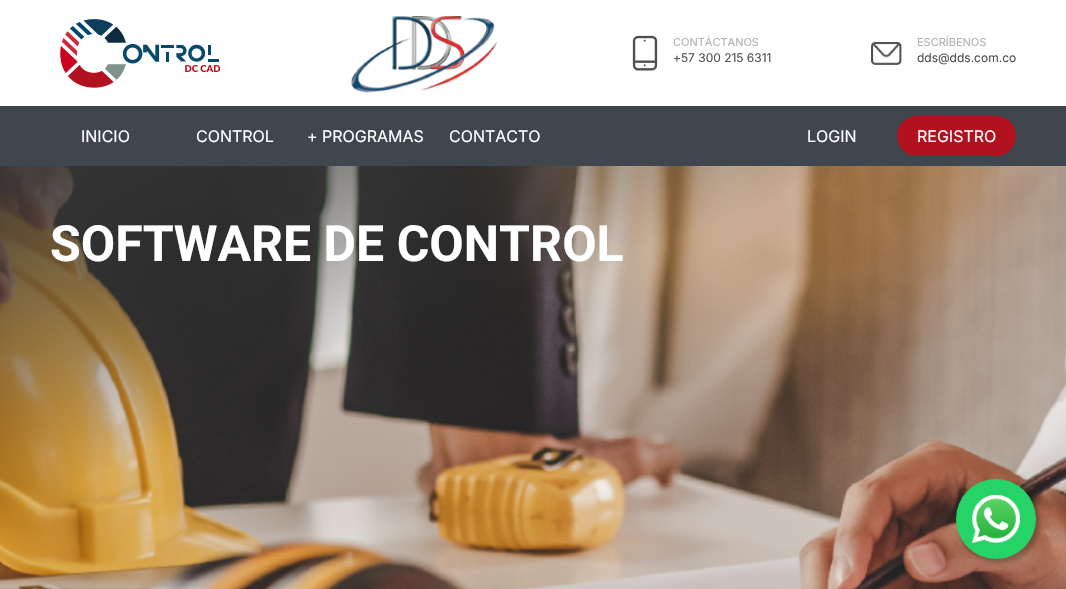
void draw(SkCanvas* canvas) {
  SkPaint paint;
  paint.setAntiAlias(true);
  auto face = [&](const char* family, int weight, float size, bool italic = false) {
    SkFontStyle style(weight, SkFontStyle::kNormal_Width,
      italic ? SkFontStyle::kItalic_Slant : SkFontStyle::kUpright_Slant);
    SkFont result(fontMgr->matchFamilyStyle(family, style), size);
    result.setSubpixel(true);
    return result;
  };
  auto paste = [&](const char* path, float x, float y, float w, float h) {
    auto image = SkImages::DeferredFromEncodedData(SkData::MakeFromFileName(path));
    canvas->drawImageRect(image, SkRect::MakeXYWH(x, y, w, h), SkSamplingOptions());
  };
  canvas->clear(0xffffffff);
  paste("img/1.png", 60, 19, 161, 69);
  paste("img/2.png", 351, 16, 147, 77);
  paste("img/3.png", 632, 35, 26, 36);
  paste("img/4.png", 871, 42, 31, 23);
  paint.setColor(0xff40464d);
  canvas->drawRect(SkRect::MakeXYWH(0, 106, 1066, 60), paint);
  paint.setColor(0xffb2111f);
  canvas->drawRoundRect(SkRect::MakeXYWH(897, 116, 119, 40), 20, 20, paint);
  paste("img/5.png", 0, 166, 1066, 423);
  paint.setColor(0x40000000);
  paint.setMaskFilter(SkMaskFilter::MakeBlur(kNormal_SkBlurStyle, 2));
  canvas->drawRoundRect(SkRect::MakeXYWH(960, 483, 80, 80), 40, 40, paint);
  paint.setMaskFilter(nullptr);
  paint.setColor(0xff25d366);
  canvas->drawCircle(996, 519, 40, paint);
  paste("img/6.png", 972, 495, 48, 48);
  auto f0 = face("Inter", 400, 11);
  paint.setColor(0xffb1b1b1);
  canvas->drawString("CONTÁCTANOS", 673, 46, f0, paint);
  auto f1 = face("Inter", 400, 12);
  paint.setColor(0xff505050);
  canvas->drawString("+57 300 215 6311", 673, 62, f1, paint);
  paint.setColor(0xffb1b1b1);
  canvas->drawString("ESCRÍBENOS", 917, 46, f0, paint);
  paint.setColor(0xff505050);
  canvas->drawString("dds@dds.com.co", 917, 62, f1, paint);
  auto f2 = face("Inter", 400, 16);
  paint.setColor(0xffffffff);
  {
    const struct { const char* s; float x, y; } items[] = {
      {"INICIO", 81, 142},
      {"CONTROL", 196, 142},
      {"+ PROGRAMAS", 307, 142},
      {"CONTACTO", 449, 142},
      {"LOGIN", 807, 142},
      {"REGISTRO", 917, 142},
    };
    for (auto [s, x, y] : items) {
      canvas->drawString(s, x, y, f2, paint);
    }
  }
  auto f3 = face("Roboto", 700, 50);
  canvas->drawString("SOFTWARE DE CONTROL", 50, 261, f3, paint);
}
